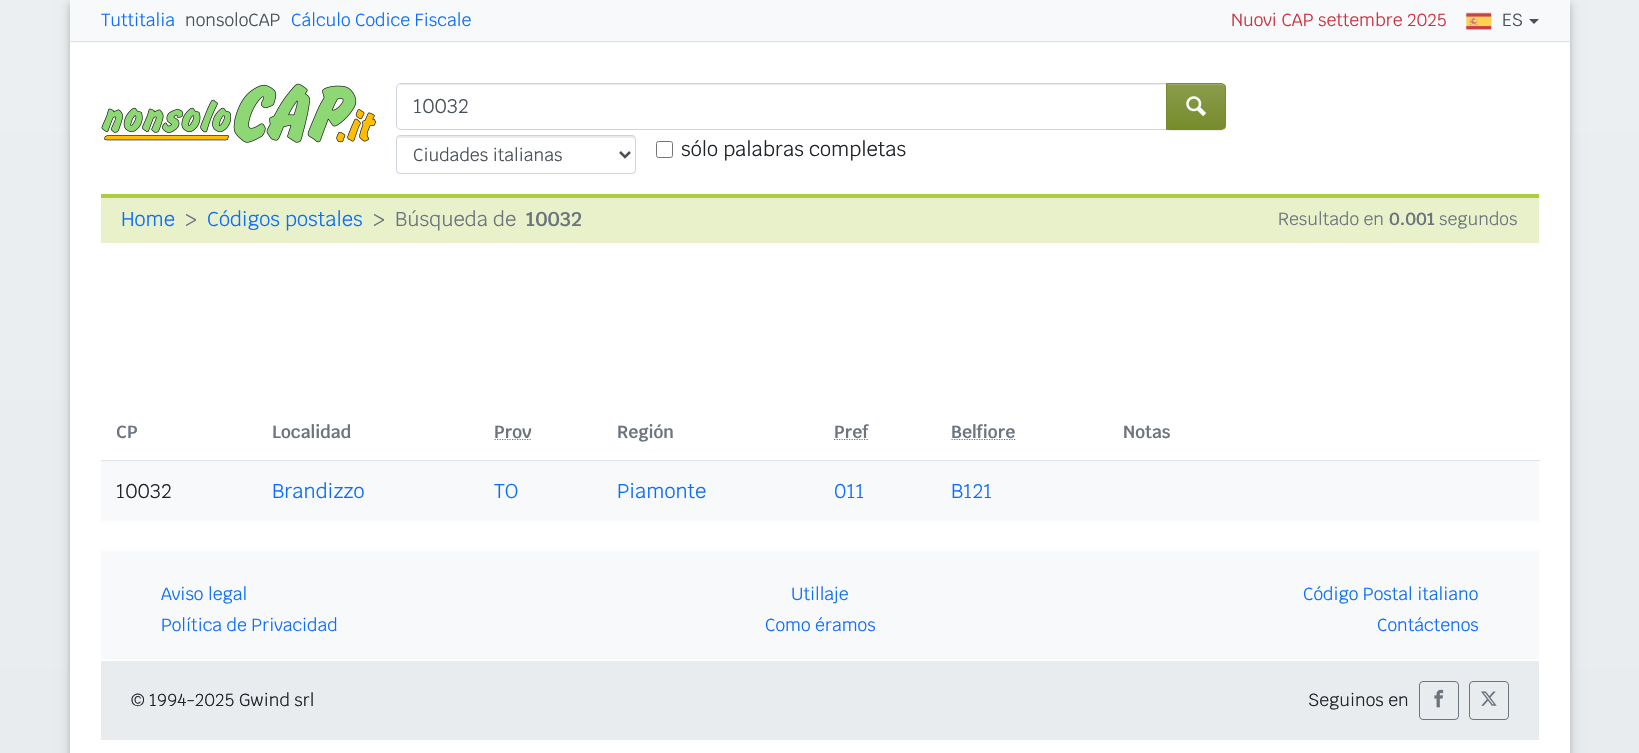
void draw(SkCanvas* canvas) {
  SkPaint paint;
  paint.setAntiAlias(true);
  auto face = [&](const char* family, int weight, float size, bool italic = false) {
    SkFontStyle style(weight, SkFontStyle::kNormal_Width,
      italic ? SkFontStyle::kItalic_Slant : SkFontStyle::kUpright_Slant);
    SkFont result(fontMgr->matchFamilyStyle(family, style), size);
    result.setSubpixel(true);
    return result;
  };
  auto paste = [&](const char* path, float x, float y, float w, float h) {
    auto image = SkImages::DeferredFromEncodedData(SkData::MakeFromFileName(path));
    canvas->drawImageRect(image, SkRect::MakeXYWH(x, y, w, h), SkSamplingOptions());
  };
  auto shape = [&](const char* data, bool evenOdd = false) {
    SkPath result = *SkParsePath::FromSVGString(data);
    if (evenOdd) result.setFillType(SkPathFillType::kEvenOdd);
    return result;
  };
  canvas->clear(0xffffffff);
  {
    const SkColor colors[] = {0xffeceff1, 0xffe9ecef};
    const float stops[] = {0, 1};
    const SkPoint ends[] = {{820, 0}, {820, 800}};
    paint.setShader(SkGradientShader::MakeLinear(ends, colors, stops, 2, SkTileMode::kClamp));
    paint.setAlpha(255);
  }
  canvas->drawRect(SkRect::MakeXYWH(0, 0, 1639, 753), paint);
  paint.setShader(nullptr);
  paint.setColor(0x1f000000);
  paint.setMaskFilter(SkMaskFilter::MakeBlur(kNormal_SkBlurStyle, 6));
  canvas->drawRect(SkRect::MakeXYWH(70, 3, 1500, 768), paint);
  paint.setMaskFilter(nullptr);
  paint.setColor(0x29000000);
  paint.setMaskFilter(SkMaskFilter::MakeBlur(kNormal_SkBlurStyle, 3));
  canvas->drawRect(SkRect::MakeXYWH(70, 3, 1500, 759), paint);
  paint.setMaskFilter(nullptr);
  {
    const struct { float x, y, w, h; SkColor color; } items[] = {
      {70, 43, 1500, 710, 0xffffffff},
      {70, 0, 1500, 43, 0xfff8f9fa},
      {70, 41, 1500, 1, 0xffdee2e6},
    };
    for (auto [x, y, w, h, color] : items) {
      paint.setColor(color);
      canvas->drawRect(SkRect::MakeXYWH(x, y, w, h), paint);
    }
  }
  paste("img/1.png", 1466, 12, 26, 18);
  paint.setColor(0xff495057);
  canvas->drawPath(shape("M1529 19H1539L1534 24Z"), paint);
  paste("img/2.png", 101, 83, 275, 60);
  paint.setColor(0xffececec);
  canvas->drawPath(shape("M401 85H1166V84H402C400 84 398 86 398 88V89C398 87 399 85 401 85Z"), paint);
  paint.setStroke(true);
  paint.setStrokeWidth(1);
  paint.setColor(0xffced4da);
  canvas->drawPath(shape("M401 83.5H1167.5V129.5H401C398.5 129.5 396.5 127.5 396.5 125V88C396.5 85.5 398.5 83.5 401 83.5Z"), paint);
  paint.setStroke(false);
  paint.setColor(0x12000000);
  paint.setMaskFilter(SkMaskFilter::MakeBlur(kNormal_SkBlurStyle, 0.5f));
  canvas->drawRoundRect(SkRect::MakeXYWH(1166, 84, 60, 47), 5, 5, paint);
  paint.setMaskFilter(nullptr);
  canvas->save();
  canvas->clipPath(shape("M1166 83H1221C1224 83 1226 85 1226 88V125C1226 128 1224 130 1221 130H1166Z"), true);
  {
    const SkColor colors[] = {0xff8b9c4c, 0xff768b2c};
    const float stops[] = {0, 1};
    const SkPoint ends[] = {{1196, 84}, {1196, 129}};
    paint.setShader(SkGradientShader::MakeLinear(ends, colors, stops, 2, SkTileMode::kClamp));
    paint.setAlpha(255);
  }
  canvas->drawRect(SkRect::MakeXYWH(1167, 84, 59, 45), paint);
  canvas->restore();
  paint.setShader(nullptr);
  paint.setColor(0xff9cab67);
  canvas->drawPath(shape("M1168 85H1221C1223 85 1225 87 1225 89V88C1225 86 1223 84 1221 84H1168Z"), paint);
  paint.setStroke(true);
  paint.setColor(0xff768b2c);
  canvas->drawPath(shape("M1166.5 83.5H1221C1223.5 83.5 1225.5 85.5 1225.5 88V125C1225.5 127.5 1223.5 129.5 1221 129.5H1166.5Z"), paint);
  paste("img/3.png", 1186, 96, 21, 21);
  paint.setStroke(false);
  paint.setColor(0xffececec);
  canvas->drawPath(shape("M400 138H632C634 138 635 139 635 140C635 138 635 136 632 136H400C398 136 398 138 398 140C398 139 399 138 400 138Z"), paint);
  paint.setStroke(true);
  paint.setColor(0xffced4da);
  canvas->drawRoundRect(SkRect::MakeXYWH(396.5f, 135.5f, 239, 38), 3.5f, 3.5f, paint);
  paint.setStrokeWidth(2.5f);
  paint.setColor(0xff495057);
  canvas->drawPath(shape("M620 152L625 157L630 152"), paint);
  paint.setStrokeWidth(1);
  paint.setColor(0xff767676);
  canvas->drawRoundRect(SkRect::MakeXYWH(656.5f, 141.5f, 16, 16), 2, 2, paint);
  paint.setStroke(false);
  paint.setColor(0xffadcd41);
  canvas->drawRect(SkRect::MakeXYWH(101, 194, 1438, 4), paint);
  paint.setColor(0xffe8f1ca);
  canvas->drawRect(SkRect::MakeXYWH(101, 198, 1438, 45), paint);
  paint.setStroke(true);
  paint.setStrokeWidth(1.2f);
  paint.setColor(0xff6c757d);
  paint.setPathEffect(SkDashPathEffect::Make({{1.25f, 1.25f}}, 0));
  canvas->drawPath(shape("M494.5 439.5H532"), paint);
  paint.setPathEffect(nullptr);
  paint.setPathEffect(SkDashPathEffect::Make({{1.25f, 1.25f}}, 0));
  canvas->drawPath(shape("M834 439.5H868.5"), paint);
  paint.setPathEffect(nullptr);
  paint.setPathEffect(SkDashPathEffect::Make({{1.25f, 1.25f}}, 0));
  canvas->drawPath(shape("M951.5 439.5H1015.5"), paint);
  paint.setPathEffect(nullptr);
  paint.setStroke(false);
  {
    const struct { float x, y, w, h; SkColor color; } items[] = {
      {101, 461, 1438, 60, 0xfff8f9fa},
      {101, 460, 1439, 1, 0xffdee2e6},
      {101, 551, 1438, 108, 0xfff8f9fa},
      {101, 661, 1438, 79, 0xffe9ecef},
    };
    for (auto [x, y, w, h, color] : items) {
      paint.setColor(color);
      canvas->drawRect(SkRect::MakeXYWH(x, y, w, h), paint);
    }
  }
  paint.setStroke(true);
  paint.setStrokeWidth(1);
  paint.setColor(0xff6c757d);
  canvas->drawRoundRect(SkRect::MakeXYWH(1419.5f, 681.5f, 39, 38), 3.5f, 3.5f, paint);
  paste("img/4.png", 1434, 689, 10, 19);
  canvas->drawRoundRect(SkRect::MakeXYWH(1469.5f, 681.5f, 39, 38), 3.5f, 3.5f, paint);
  paste("img/5.png", 1481, 691, 16, 15);
  auto f0 = face("Krub", 400, 17.5f);
  paint.setStroke(false);
  paint.setColor(0xff0d6efb);
  canvas->drawString("Tuttitalia", 101, 26, f0, paint);
  paint.setColor(0xff495057);
  canvas->drawString("nonsoloCAP", 185, 26, f0, paint);
  paint.setColor(0xff0d6efb);
  canvas->drawString("Cálculo Codice Fiscale", 291, 26, f0, paint);
  paint.setColor(0xffca313f);
  canvas->drawString("Nuovi CAP settembre 2025", 1231, 26, f0, paint);
  paint.setColor(0xff495057);
  canvas->drawString("ES", 1502, 26, f0, paint);
  auto f1 = face("Krub", 400, 20);
  canvas->drawString("10032", 413, 113, f1, paint);
  canvas->drawString("Ciudades italianas", 413, 161, f0, paint);
  paint.setColor(0xff212529);
  canvas->drawString("sólo palabras completas", 681, 156, f1, paint);
  paint.setColor(0xff0d6efb);
  canvas->drawString("Home", 121, 226, f1, paint);
  paint.setColor(0xff6c757d);
  canvas->drawString(">", 185, 226, f1, paint);
  paint.setColor(0xff0d6efb);
  canvas->drawString("Códigos postales", 207, 226, f1, paint);
  paint.setColor(0xff6c757d);
  canvas->drawString(">", 373, 226, f1, paint);
  canvas->drawString("Búsqueda de", 395, 226, f1, paint);
  auto f2 = face("Krub", 600, 20);
  canvas->drawString("10032", 526, 226, f2, paint);
  canvas->drawString("Resultado en", 1278, 225, f0, paint);
  auto f3 = face("Krub", 600, 17.5f);
  canvas->drawString("0.001", 1389, 225, f3, paint);
  canvas->drawString("segundos", 1439, 225, f0, paint);
  {
    const struct { const char* s; float x, y; } items[] = {
      {"CP", 116, 438},
      {"Localidad", 272, 438},
      {"Prov", 494, 438},
      {"Región", 617, 438},
      {"Pref", 834, 438},
      {"Belfiore", 951, 438},
      {"Notas", 1123, 438},
    };
    for (auto [s, x, y] : items) {
      canvas->drawString(s, x, y, f3, paint);
    }
  }
  paint.setColor(0xff212529);
  canvas->drawString("10032", 116, 498, f1, paint);
  paint.setColor(0xff0d6efb);
  {
    const struct { const char* s; float x, y; } items[] = {
      {"Brandizzo", 272, 498},
      {"TO", 494, 498},
      {"Piamonte", 617, 498},
      {"011", 834, 498},
      {"B121", 951, 498},
    };
    for (auto [s, x, y] : items) {
      canvas->drawString(s, x, y, f1, paint);
    }
  }
  {
    const struct { const char* s; float x, y; } items[] = {
      {"Aviso legal", 161, 600},
      {"Política de Privacidad", 161, 631},
      {"Utillaje", 791, 600},
      {"Como éramos", 765, 631},
      {"Código Postal italiano", 1303, 600},
      {"Contáctenos", 1377, 631},
    };
    for (auto [s, x, y] : items) {
      canvas->drawString(s, x, y, f0, paint);
    }
  }
  paint.setColor(0xff212529);
  canvas->drawString("© 1994-2025 Gwind srl", 131, 706, f0, paint);
  canvas->drawString("Seguinos en", 1308, 706, f0, paint);
}
